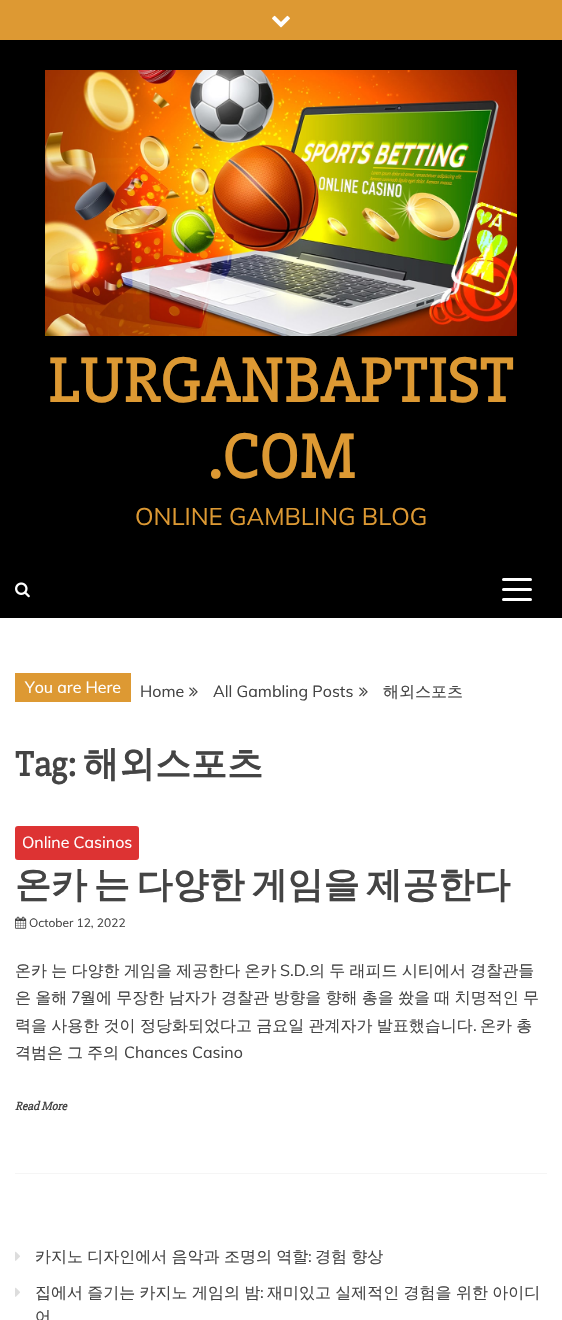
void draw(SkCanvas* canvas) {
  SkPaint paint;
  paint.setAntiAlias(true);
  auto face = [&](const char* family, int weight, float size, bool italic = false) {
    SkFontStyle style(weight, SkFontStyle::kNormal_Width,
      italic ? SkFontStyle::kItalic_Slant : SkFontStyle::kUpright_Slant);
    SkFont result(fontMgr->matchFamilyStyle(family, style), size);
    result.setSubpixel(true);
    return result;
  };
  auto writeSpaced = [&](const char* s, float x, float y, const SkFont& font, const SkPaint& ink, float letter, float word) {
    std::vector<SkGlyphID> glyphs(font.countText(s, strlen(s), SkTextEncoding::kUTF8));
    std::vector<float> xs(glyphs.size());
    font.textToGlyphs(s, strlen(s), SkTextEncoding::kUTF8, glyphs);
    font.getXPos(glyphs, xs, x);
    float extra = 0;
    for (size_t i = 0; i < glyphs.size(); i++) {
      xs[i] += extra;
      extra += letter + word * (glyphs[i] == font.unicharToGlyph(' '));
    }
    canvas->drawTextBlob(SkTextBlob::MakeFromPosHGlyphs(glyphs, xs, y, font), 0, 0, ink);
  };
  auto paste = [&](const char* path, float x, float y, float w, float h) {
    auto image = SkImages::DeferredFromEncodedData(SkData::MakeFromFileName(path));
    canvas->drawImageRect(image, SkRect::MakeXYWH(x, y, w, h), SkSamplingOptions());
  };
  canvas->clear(0xffffffff);
  paint.setColor(0xffdd9933);
  canvas->drawRect(SkRect::MakeXYWH(0, 0, 562, 40), paint);
  paste("img/1.png", 272, 15, 18, 13);
  paint.setColor(0xff000000);
  canvas->drawRect(SkRect::MakeXYWH(0, 40, 562, 578), paint);
  paste("img/2.png", 45, 70, 472, 266);
  paste("img/3.png", 15, 582, 15, 16);
  paint.setColor(0xffffffff);
  canvas->drawRoundRect(SkRect::MakeXYWH(502, 578, 30, 3), 1.5f, 1.5f, paint);
  canvas->drawRoundRect(SkRect::MakeXYWH(502, 588, 30, 3), 1.5f, 1.5f, paint);
  canvas->drawRoundRect(SkRect::MakeXYWH(502, 598, 30, 3), 1.5f, 1.5f, paint);
  paint.setColor(0xffdd9933);
  canvas->drawRect(SkRect::MakeXYWH(15, 673, 116, 29), paint);
  paste("img/4.png", 189, 687, 9, 10);
  paste("img/4.png", 359, 687, 9, 10);
  paint.setColor(0xfff5f5f5);
  canvas->drawRect(SkRect::MakeXYWH(15, 1173, 532, 1), paint);
  paint.setColor(0xffdd3333);
  canvas->drawRoundRect(SkRect::MakeXYWH(15, 826, 124, 34), 3, 3, paint);
  paste("img/5.png", 15, 916, 12, 13);
  paste("img/6.png", 15, 1251, 5, 10);
  paste("img/6.png", 15, 1287, 5, 10);
  auto f0 = face("Slabo 27px", 700, 64);
  paint.setColor(0xffdd9933);
  writeSpaced("LURGANBAPTIST", 48, 402, f0, paint, 1, 0);
  writeSpaced(".COM", 207, 478, f0, paint, 1, 0);
  auto f1 = face("Muli", 400, 24);
  canvas->drawString("ONLINE GAMBLING BLOG", 135, 525, f1, paint);
  auto f2 = face("Muli", 400, 16);
  paint.setColor(0xffffffff);
  canvas->drawString("You are Here", 25, 693, f2, paint);
  paint.setColor(0xff444444);
  canvas->drawString("Home", 140, 697, f2, paint);
  canvas->drawString("All Gambling Posts", 213, 697, f2, paint);
  auto f3 = face("WenQuanYi Zen Hei", 500, 16);
  canvas->drawString("해외스포츠", 383, 697, f3, paint);
  auto f4 = face("Slabo 27px", 700, 36);
  canvas->drawString("Tag:", 15, 776, f4, paint);
  auto f5 = face("WenQuanYi Zen Hei", 700, 36);
  canvas->drawString("해외스포츠", 83, 776, f5, paint);
  paint.setColor(0xffffffff);
  canvas->drawString("Online Casinos", 22, 848, f2, paint);
  paint.setColor(0xff444444);
  writeSpaced("온카 는 다양한 게임을 제공한다", 15, 897, f5, paint, 0, -4);
  auto f6 = face("Muli", 400, 12);
  canvas->drawString("October 12, 2022", 29, 927, f6, paint);
  writeSpaced("온카 는 다양한 게임을 제공한다 온카", 15, 976, f3, paint, 0, -0.5f);
  canvas->drawString("S.D.", 280, 976, f2, paint);
  writeSpaced("의 두 래피드 시티에서 경찰관들", 309, 976, f3, paint, 0, -0.5f);
  writeSpaced("은 올해", 15, 1003, f3, paint, 0, -0.5f);
  canvas->drawString("7", 71, 1003, f2, paint);
  writeSpaced("월에 무장한 남자가 경찰관 방향을 향해 총을 쐈을 때 치명적인 무", 80, 1003, f3, paint, 0, -0.5f);
  writeSpaced("력을 사용한 것이 정당화되었다고 금요일 관계자가 발표했습니다", 15, 1031, f3, paint, 0, -0.5f);
  canvas->drawString(".", 473, 1031, f2, paint);
  writeSpaced("온카 총", 480, 1031, f3, paint, 0, -0.5f);
  {
    const struct { const char* s; float x, y; } items[] = {
      {"격범은", 15, 1058},
      {"그", 67, 1058},
      {"주의", 87, 1058},
    };
    for (auto [s, x, y] : items) {
      canvas->drawString(s, x, y, f3, paint);
    }
  }
  canvas->drawString("Chances Casino", 124, 1058, f2, paint);
  auto f7 = face("Slabo 27px", 700, 12, true);
  canvas->drawString("Read More", 15, 1110, f7, paint);
  writeSpaced("카지노 디자인에서 음악과 조명의 역할", 35, 1262, f3, paint, 0, -0.5f);
  canvas->drawString(":", 308, 1262, f2, paint);
  writeSpaced("경험 향상", 315, 1262, f3, paint, 0, -0.5f);
  writeSpaced("집에서 즐기는 카지노 게임의 밤", 35, 1298, f3, paint, 0, -0.5f);
  canvas->drawString(":", 260, 1298, f2, paint);
  writeSpaced("재미있고 실제적인 경험을 위한 아이디", 267, 1298, f3, paint, 0, -0.5f);
  canvas->drawString("어", 35, 1322, f3, paint);
}
